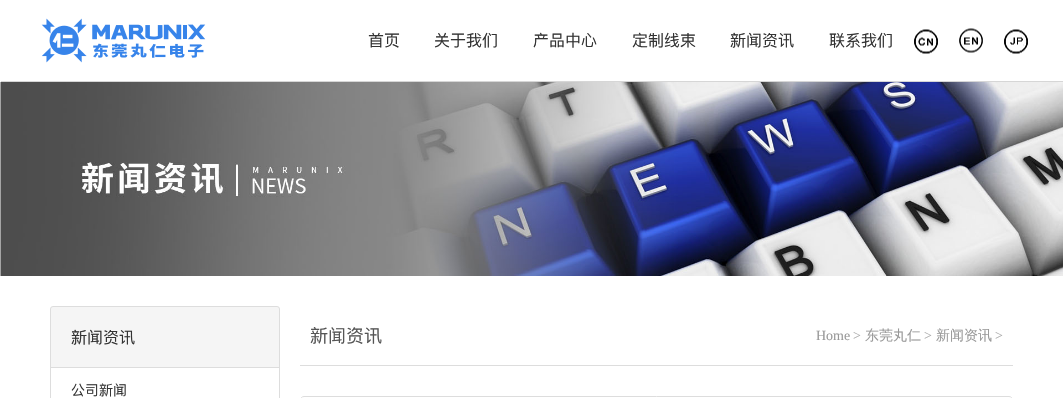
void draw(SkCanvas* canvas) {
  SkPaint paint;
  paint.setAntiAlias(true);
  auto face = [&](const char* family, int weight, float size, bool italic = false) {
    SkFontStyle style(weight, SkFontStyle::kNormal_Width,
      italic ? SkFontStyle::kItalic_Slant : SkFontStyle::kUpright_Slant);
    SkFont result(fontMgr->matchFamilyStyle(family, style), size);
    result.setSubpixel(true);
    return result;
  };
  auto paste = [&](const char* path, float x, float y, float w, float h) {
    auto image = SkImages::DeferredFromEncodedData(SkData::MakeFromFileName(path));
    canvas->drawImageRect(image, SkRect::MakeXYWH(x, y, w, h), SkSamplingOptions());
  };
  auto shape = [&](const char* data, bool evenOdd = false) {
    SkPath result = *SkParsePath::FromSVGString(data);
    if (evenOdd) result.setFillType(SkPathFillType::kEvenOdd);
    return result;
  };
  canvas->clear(0xffffffff);
  paint.setColor(0xffd6d6d6);
  canvas->drawRect(SkRect::MakeXYWH(1, 81, 1062, 1), paint);
  paste("img/1.png", 41, 18, 165, 45);
  paste("img/2.png", 914, 29, 24, 25);
  paste("img/3.png", 959, 28, 24, 25);
  paste("img/4.png", 1004, 29, 24, 25);
  paste("img/5.png", 0, 82, 1063, 194);
  paint.setColor(0xfff5f5f5);
  canvas->drawRoundRect(SkRect::MakeXYWH(50.5f, 306.5f, 229, 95), 2.5f, 2.5f, paint);
  paint.setStroke(true);
  paint.setStrokeWidth(1);
  paint.setColor(0xffdddddd);
  canvas->drawRoundRect(SkRect::MakeXYWH(50.5f, 306.5f, 229, 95), 2.5f, 2.5f, paint);
  paint.setStroke(false);
  {
    const struct { float x, y, w, h; SkColor color; } items[] = {
      {51, 368, 228, 30, 0xffffffff},
      {51, 367, 228, 1, 0xffdddddd},
      {300, 365, 713, 1, 0xffdddddd},
    };
    for (auto [x, y, w, h, color] : items) {
      paint.setColor(color);
      canvas->drawRect(SkRect::MakeXYWH(x, y, w, h), paint);
    }
  }
  paint.setStroke(true);
  canvas->drawPath(shape("M304 396.5H1009C1011 396.5 1012.5 398 1012.5 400V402.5H300.5V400C300.5 398 302 396.5 304 396.5Z"), paint);
  auto f0 = face("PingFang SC", 500, 16);
  paint.setStroke(false);
  paint.setColor(0xff333333);
  {
    const struct { const char* s; float x, y; } items[] = {
      {"首页", 368, 46},
      {"关于我们", 434, 46},
      {"产品中心", 533, 46},
      {"定制线束", 632, 46},
      {"新闻资讯", 730, 46},
      {"联系我们", 829, 46},
      {"新闻资讯", 71, 343},
    };
    for (auto [s, x, y] : items) {
      canvas->drawString(s, x, y, f0, paint);
    }
  }
  auto f1 = face("PingFang SC", 500, 14);
  canvas->drawString("公司新闻", 71, 395, f1, paint);
  auto f2 = face("PingFang SC", 500, 18);
  paint.setColor(0xff555555);
  canvas->drawString("新闻资讯", 310, 342, f2, paint);
  auto f3 = face("Liberation Serif", 400, 14);
  paint.setColor(0xff999999);
  canvas->drawString("Home", 816, 340, f3, paint);
  paint.setColor(0xffaaaaaa);
  canvas->drawString(">", 853, 340, f3, paint);
  auto f4 = face("WenQuanYi Zen Hei", 500, 14);
  paint.setColor(0xff999999);
  canvas->drawString("东莞丸仁", 865, 340, f4, paint);
  paint.setColor(0xffaaaaaa);
  canvas->drawString(">", 924, 340, f3, paint);
  paint.setColor(0xff999999);
  canvas->drawString("新闻资讯", 936, 340, f4, paint);
  paint.setColor(0xffaaaaaa);
  canvas->drawString(">", 995, 340, f3, paint);
}
